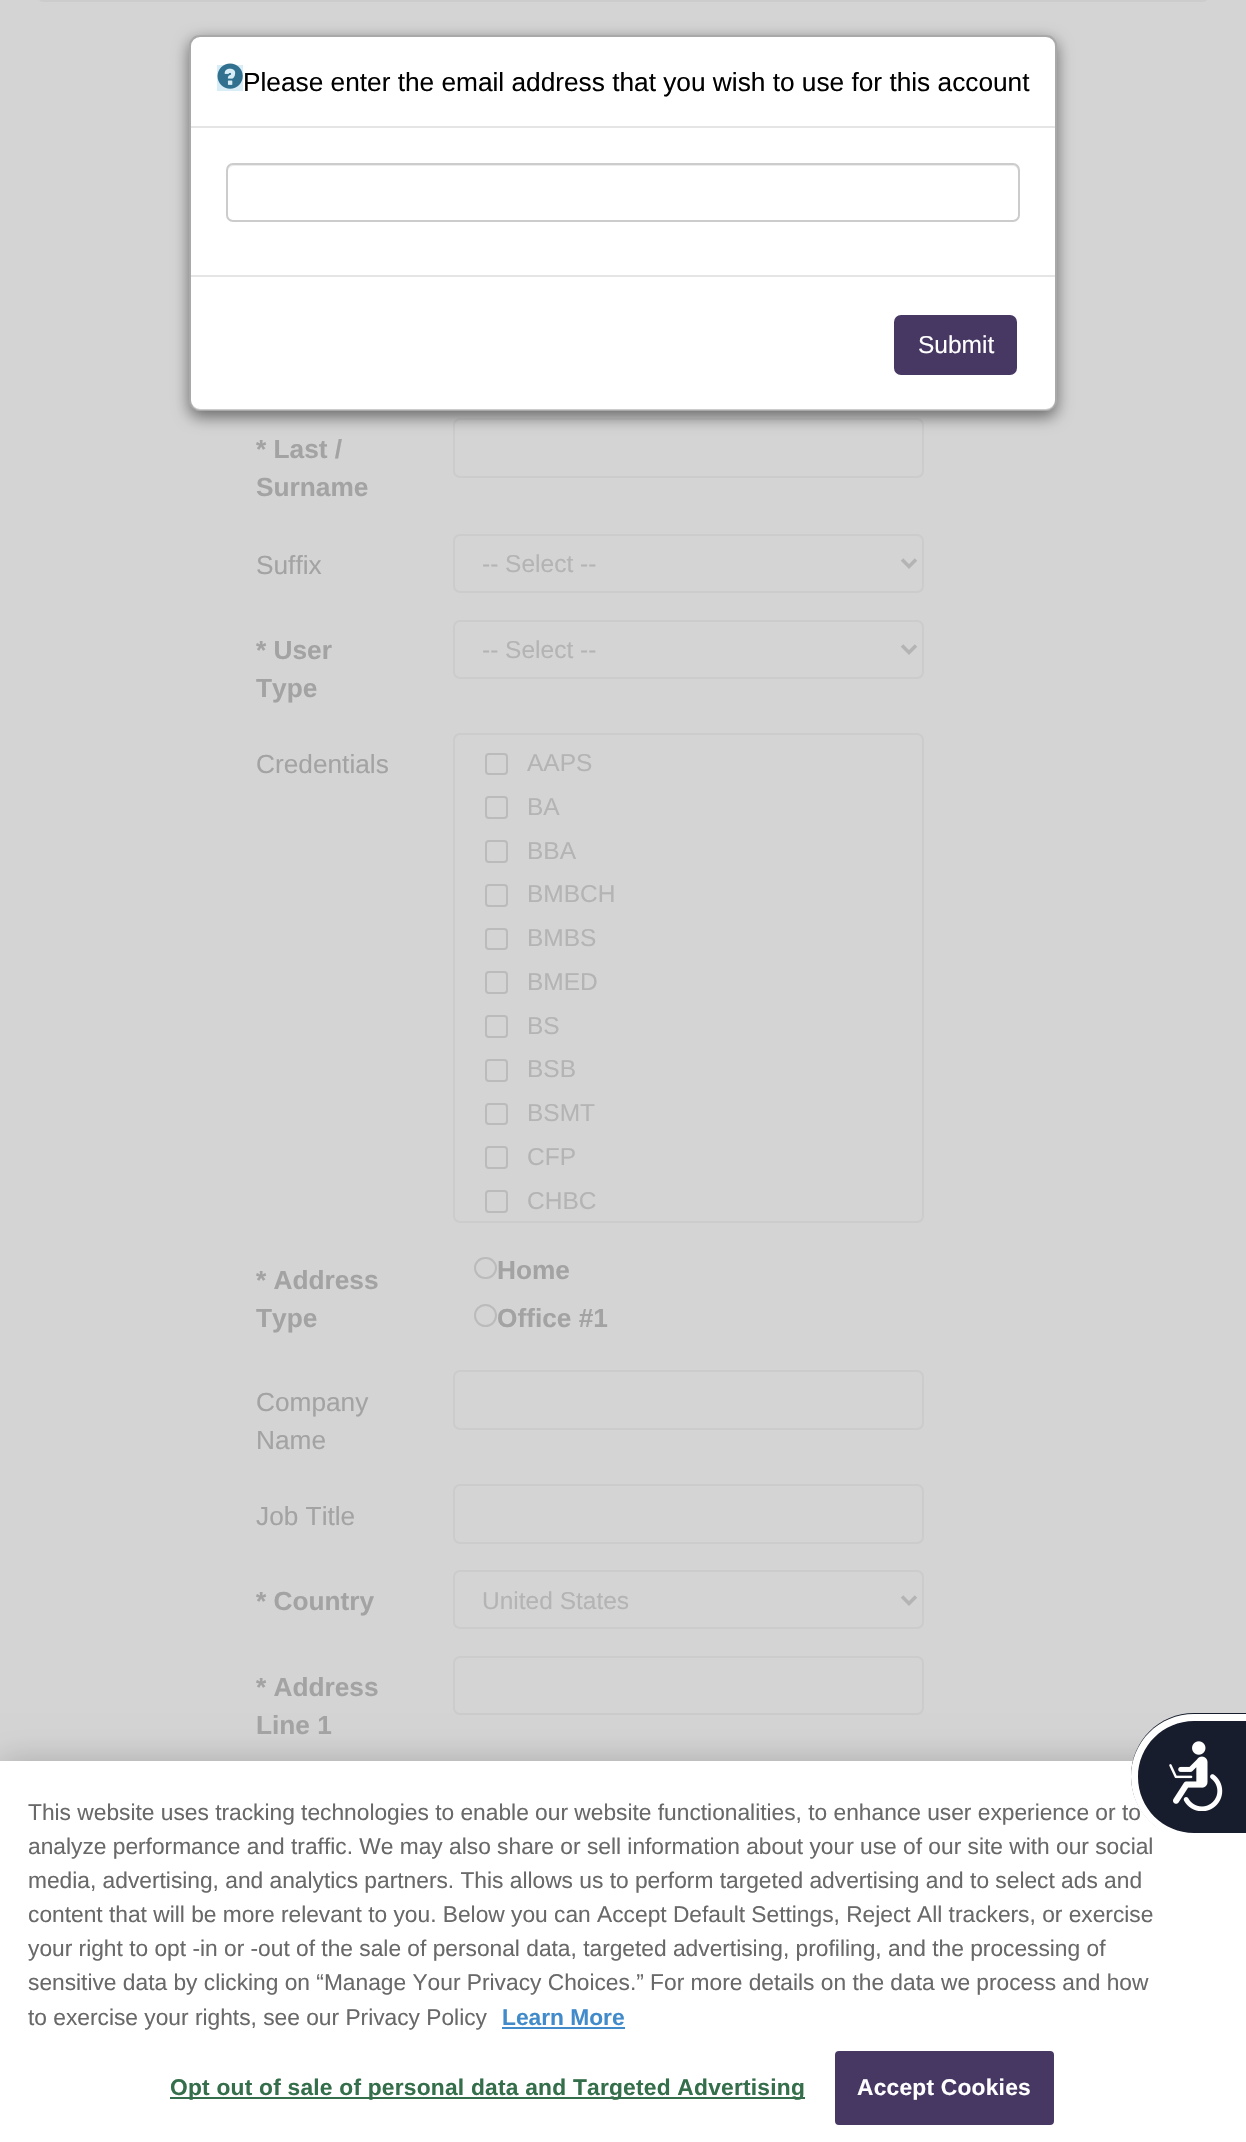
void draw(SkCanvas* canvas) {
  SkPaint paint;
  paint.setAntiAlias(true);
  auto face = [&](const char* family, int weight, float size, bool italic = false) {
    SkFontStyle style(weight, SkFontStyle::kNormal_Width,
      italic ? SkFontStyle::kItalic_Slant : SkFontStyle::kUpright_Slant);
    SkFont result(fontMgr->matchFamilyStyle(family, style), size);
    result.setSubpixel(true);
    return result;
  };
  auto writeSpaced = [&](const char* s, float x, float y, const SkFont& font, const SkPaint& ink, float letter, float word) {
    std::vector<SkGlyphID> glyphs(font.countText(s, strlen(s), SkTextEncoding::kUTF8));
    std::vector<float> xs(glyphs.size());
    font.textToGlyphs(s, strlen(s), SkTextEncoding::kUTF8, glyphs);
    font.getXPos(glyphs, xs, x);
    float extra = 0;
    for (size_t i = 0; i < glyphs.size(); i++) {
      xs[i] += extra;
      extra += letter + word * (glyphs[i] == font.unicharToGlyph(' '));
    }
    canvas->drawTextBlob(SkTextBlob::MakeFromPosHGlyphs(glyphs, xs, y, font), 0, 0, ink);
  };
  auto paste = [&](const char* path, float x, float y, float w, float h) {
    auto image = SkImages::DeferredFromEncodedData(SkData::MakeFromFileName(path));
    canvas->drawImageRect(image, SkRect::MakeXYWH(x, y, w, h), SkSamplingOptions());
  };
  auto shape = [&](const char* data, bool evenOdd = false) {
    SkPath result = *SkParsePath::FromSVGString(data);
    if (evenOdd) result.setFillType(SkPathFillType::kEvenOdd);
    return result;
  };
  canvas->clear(0xffd4d4d4);
  paint.setStroke(true);
  paint.setStrokeWidth(2);
  paint.setColor(0xffcccccc);
  canvas->drawRoundRect(SkRect::MakeXYWH(38, -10, 1170, 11), 8, 8, paint);
  canvas->drawRoundRect(SkRect::MakeXYWH(454, 419, 469, 58), 6, 6, paint);
  canvas->save();
  canvas->clipPath(shape("M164 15H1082V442H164ZM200 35H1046C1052 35 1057 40 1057 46V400C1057 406 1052 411 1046 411H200C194 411 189 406 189 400V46C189 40 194 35 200 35Z", true), true);
  paint.setStroke(false);
  paint.setColor(0x80000000);
  paint.setMaskFilter(SkMaskFilter::MakeBlur(kNormal_SkBlurStyle, 8));
  canvas->drawRoundRect(SkRect::MakeXYWH(189, 40, 868, 377), 11, 11, paint);
  paint.setMaskFilter(nullptr);
  canvas->restore();
  paint.setColor(0xffffffff);
  canvas->drawRoundRect(SkRect::MakeXYWH(191, 37, 864, 373), 9, 9, paint);
  paint.setStroke(true);
  paint.setColor(0x33000000);
  canvas->drawRoundRect(SkRect::MakeXYWH(190, 36, 866, 374), 10, 10, paint);
  paint.setStroke(false);
  paint.setColor(0xffe5e5e5);
  canvas->drawRect(SkRect::MakeXYWH(191, 126, 864, 2), paint);
  paint.setColor(0xffd9edf7);
  canvas->drawRect(SkRect::MakeXYWH(217, 65, 26, 26), paint);
  paste("img/1.png", 217, 63, 26, 26);
  paint.setColor(0xffececec);
  canvas->drawPath(shape("M233 166H1013C1016 166 1018 169 1018 172V217L1017 220C1018 219 1019 217 1019 216V170C1019 167 1017 165 1014 165H233C230 165 228 167 228 170V172C228 169 230 166 233 166Z"), paint);
  paint.setStroke(true);
  paint.setColor(0xffcccccc);
  canvas->drawRoundRect(SkRect::MakeXYWH(227, 164, 792, 57), 6, 6, paint);
  paint.setStroke(false);
  paint.setColor(0xffe5e5e5);
  canvas->drawRect(SkRect::MakeXYWH(191, 275, 864, 2), paint);
  paint.setColor(0xff473763);
  canvas->drawRoundRect(SkRect::MakeXYWH(895, 316, 121, 58), 6, 6, paint);
  paint.setStroke(true);
  canvas->drawRoundRect(SkRect::MakeXYWH(895, 316, 121, 58), 6, 6, paint);
  paint.setColor(0xffcccccc);
  canvas->drawRoundRect(SkRect::MakeXYWH(454, 535, 469, 57), 6, 6, paint);
  paint.setStrokeWidth(3.5f);
  paint.setColor(0xffb4b4b4);
  canvas->drawPath(shape("M902 559.5L909 566.5L916 559.5"), paint);
  paint.setStrokeWidth(2);
  paint.setColor(0xffcccccc);
  canvas->drawRoundRect(SkRect::MakeXYWH(454, 621, 469, 57), 6, 6, paint);
  paint.setStrokeWidth(3.5f);
  paint.setColor(0xffb4b4b4);
  canvas->drawPath(shape("M902 645.5L909 652.5L916 645.5"), paint);
  paint.setStrokeWidth(2);
  paint.setColor(0xffcccccc);
  canvas->drawRoundRect(SkRect::MakeXYWH(454, 734, 469, 488), 6, 6, paint);
  paint.setColor(0xffbbbbbb);
  canvas->drawRoundRect(SkRect::MakeXYWH(486, 754, 21, 20), 3, 3, paint);
  canvas->drawRoundRect(SkRect::MakeXYWH(486, 797, 21, 21), 3, 3, paint);
  canvas->drawRoundRect(SkRect::MakeXYWH(486, 841, 21, 21), 3, 3, paint);
  canvas->drawRoundRect(SkRect::MakeXYWH(486, 885, 21, 21), 3, 3, paint);
  canvas->drawRoundRect(SkRect::MakeXYWH(486, 929, 21, 20), 3, 3, paint);
  canvas->drawRoundRect(SkRect::MakeXYWH(486, 972, 21, 21), 3, 3, paint);
  canvas->drawRoundRect(SkRect::MakeXYWH(486, 1016, 21, 21), 3, 3, paint);
  canvas->drawRoundRect(SkRect::MakeXYWH(486, 1060, 21, 21), 3, 3, paint);
  canvas->drawRoundRect(SkRect::MakeXYWH(486, 1104, 21, 20), 3, 3, paint);
  canvas->drawRoundRect(SkRect::MakeXYWH(486, 1147, 21, 21), 3, 3, paint);
  canvas->drawRoundRect(SkRect::MakeXYWH(486, 1191, 21, 21), 3, 3, paint);
  canvas->drawRoundRect(SkRect::MakeXYWH(475, 1258, 21, 20), 10, 10, paint);
  canvas->drawCircle(485.5f, 1315.5f, 10.5f, paint);
  paint.setColor(0xffcccccc);
  canvas->drawRoundRect(SkRect::MakeXYWH(454, 1371, 469, 58), 6, 6, paint);
  canvas->drawRoundRect(SkRect::MakeXYWH(454, 1485, 469, 58), 6, 6, paint);
  canvas->drawRoundRect(SkRect::MakeXYWH(454, 1571, 469, 57), 6, 6, paint);
  paint.setStrokeWidth(3.5f);
  paint.setColor(0xffb4b4b4);
  canvas->drawPath(shape("M902 1596.5L909 1603.5L916 1596.5"), paint);
  paint.setStrokeWidth(2);
  paint.setColor(0xffcccccc);
  canvas->drawRoundRect(SkRect::MakeXYWH(454, 1657, 469, 57), 6, 6, paint);
  paint.setStroke(false);
  paint.setColor(0x33000000);
  paint.setMaskFilter(SkMaskFilter::MakeBlur(kNormal_SkBlurStyle, 16));
  canvas->drawRect(SkRect::MakeXYWH(0, 1761, 1246, 381), paint);
  paint.setMaskFilter(nullptr);
  {
    const struct { float x, y, w, h; SkColor color; } items[] = {
      {0, 1761, 1246, 381, 0xffffffff},
      {502, 2027, 123, 2, 0xff428bca},
      {170, 2097, 635, 2, 0xff346e4a},
    };
    for (auto [x, y, w, h, color] : items) {
      paint.setColor(color);
      canvas->drawRect(SkRect::MakeXYWH(x, y, w, h), paint);
    }
  }
  paint.setColor(0xff473763);
  canvas->drawRoundRect(SkRect::MakeXYWH(836, 2052, 217, 72), 3, 3, paint);
  paint.setStroke(true);
  canvas->drawRoundRect(SkRect::MakeXYWH(836, 2052, 217, 72), 3, 3, paint);
  auto f0 = face("Liberation Sans", 400, 26.25f);
  paint.setStroke(false);
  paint.setColor(0xff000000);
  canvas->drawString("Please enter the email address that you wish to use for this account", 243, 91, f0, paint);
  auto f1 = face("Liberation Sans", 400, 24.5f);
  paint.setColor(0xffffffff);
  canvas->drawString("Submit", 918, 353, f1, paint);
  auto f2 = face("Liberation Sans", 700, 26.25f);
  paint.setColor(0xffa3a3a3);
  canvas->drawString("* Last /", 256, 458, f2, paint);
  canvas->drawString("Surname", 256, 496, f2, paint);
  canvas->drawString("Suffix", 256, 574, f0, paint);
  paint.setColor(0xffb4b4b4);
  canvas->drawString("-- Select --", 482, 572, f1, paint);
  paint.setColor(0xffa3a3a3);
  canvas->drawString("* User", 256, 659, f2, paint);
  canvas->drawString("Type", 256, 697, f2, paint);
  paint.setColor(0xffb4b4b4);
  canvas->drawString("-- Select --", 482, 658, f1, paint);
  paint.setColor(0xffa3a3a3);
  canvas->drawString("Credentials", 256, 773, f0, paint);
  paint.setColor(0xffb4b4b4);
  {
    const struct { const char* s; float x, y; } items[] = {
      {"AAPS", 527, 771},
      {"BA", 527, 815},
      {"BBA", 527, 859},
      {"BMBCH", 527, 902},
      {"BMBS", 527, 946},
      {"BMED", 527, 990},
      {"BS", 527, 1034},
      {"BSB", 527, 1077},
      {"BSMT", 527, 1121},
      {"CFP", 527, 1165},
      {"CHBC", 527, 1209},
    };
    for (auto [s, x, y] : items) {
      canvas->drawString(s, x, y, f1, paint);
    }
  }
  paint.setColor(0xffa3a3a3);
  {
    const struct { const char* s; float x, y; } items[] = {
      {"* Address", 256, 1289},
      {"Type", 256, 1327},
      {"Home", 497, 1279},
      {"Office #1", 497, 1327},
    };
    for (auto [s, x, y] : items) {
      canvas->drawString(s, x, y, f2, paint);
    }
  }
  {
    const struct { const char* s; float x, y; } items[] = {
      {"Company", 256, 1411},
      {"Name", 256, 1449},
      {"Job Title", 256, 1525},
    };
    for (auto [s, x, y] : items) {
      canvas->drawString(s, x, y, f0, paint);
    }
  }
  canvas->drawString("* Country", 256, 1610, f2, paint);
  paint.setColor(0xffb4b4b4);
  canvas->drawString("United States", 482, 1609, f1, paint);
  paint.setColor(0xffa3a3a3);
  canvas->drawString("* Address", 256, 1696, f2, paint);
  canvas->drawString("Line 1", 256, 1734, f2, paint);
  auto f3 = face("Liberation Sans", 400, 22.75f);
  paint.setColor(0xff696969);
  canvas->drawString("This website uses tracking technologies to enable our website functionalities, to enhance user experience or to", 28, 1820, f3, paint);
  canvas->drawString("analyze performance and traffic. We may also share or sell information about your use of our site with our social", 28, 1854, f3, paint);
  paint.setColor(0xff171d2d);
  canvas->drawPath(shape("M1194 1713H1246V1839H1194C1159 1839 1131 1811 1131 1776C1131 1741 1159 1713 1194 1713Z"), paint);
  paint.setColor(0xffffffff);
  canvas->drawPath(shape("M1194 1714H1246V1840H1194C1159 1840 1131 1811 1131 1777C1131 1742 1159 1714 1194 1714ZM1194 1721H1246V1833H1194C1163 1833 1138 1808 1138 1777C1138 1746 1163 1721 1194 1721Z", true), paint);
  paste("img/2.png", 1169, 1741, 54, 70);
  paint.setColor(0xff696969);
  {
    const struct { const char* s; float x, y; } items[] = {
      {"media, advertising, and analytics partners. This allows us to perform targeted advertising and to select ads and", 28, 1888},
      {"content that will be more relevant to you. Below you can Accept Default Settings, Reject All trackers, or exercise", 28, 1922},
      {"your right to opt -in or -out of the sale of personal data, targeted advertising, profiling, and the processing of", 28, 1956},
      {"sensitive data by clicking on “Manage Your Privacy Choices.” For more details on the data we process and how", 28, 1990},
      {"to exercise your rights, see our Privacy Policy", 28, 2025},
    };
    for (auto [s, x, y] : items) {
      canvas->drawString(s, x, y, f3, paint);
    }
  }
  auto f4 = face("Liberation Sans", 700, 22.75f);
  paint.setColor(0xff428bca);
  canvas->drawString("Learn More", 502, 2025, f4, paint);
  paint.setColor(0xff346e4a);
  writeSpaced("Opt out of sale of personal data and Targeted Advertising", 170, 2095, f4, paint, 0.23f, 0);
  paint.setColor(0xffffffff);
  writeSpaced("Accept Cookies", 857, 2095, f4, paint, 0.23f, 0);
}
